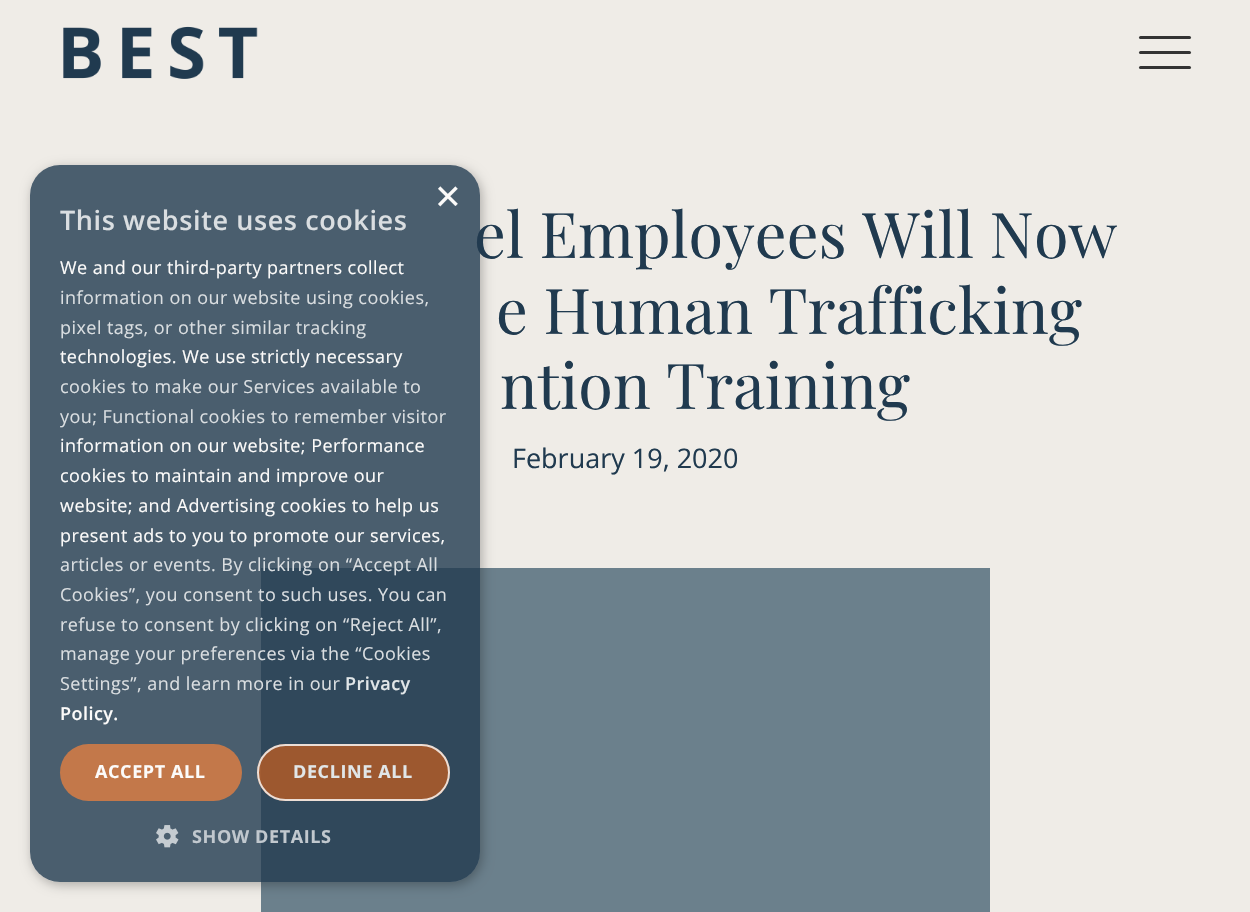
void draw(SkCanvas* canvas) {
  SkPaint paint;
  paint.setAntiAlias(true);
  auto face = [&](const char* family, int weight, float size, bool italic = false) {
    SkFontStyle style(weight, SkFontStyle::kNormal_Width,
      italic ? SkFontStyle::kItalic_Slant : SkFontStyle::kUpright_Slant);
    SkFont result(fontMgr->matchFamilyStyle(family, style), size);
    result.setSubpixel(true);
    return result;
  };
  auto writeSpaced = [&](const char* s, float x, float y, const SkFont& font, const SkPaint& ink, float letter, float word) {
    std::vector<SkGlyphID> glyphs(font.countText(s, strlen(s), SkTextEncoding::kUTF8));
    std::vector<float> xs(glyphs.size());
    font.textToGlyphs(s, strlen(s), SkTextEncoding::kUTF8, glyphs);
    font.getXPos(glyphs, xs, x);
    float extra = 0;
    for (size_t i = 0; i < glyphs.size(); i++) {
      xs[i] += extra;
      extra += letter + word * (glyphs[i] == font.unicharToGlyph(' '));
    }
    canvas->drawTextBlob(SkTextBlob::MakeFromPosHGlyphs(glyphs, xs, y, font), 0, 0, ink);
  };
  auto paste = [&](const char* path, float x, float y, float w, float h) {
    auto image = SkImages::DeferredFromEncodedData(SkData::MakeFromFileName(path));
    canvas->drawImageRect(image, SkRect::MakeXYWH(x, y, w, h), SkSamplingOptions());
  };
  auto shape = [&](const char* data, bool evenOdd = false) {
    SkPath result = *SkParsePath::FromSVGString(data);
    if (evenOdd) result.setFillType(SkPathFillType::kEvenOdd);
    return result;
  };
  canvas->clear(0xffefece7);
  paste("img/1.png", 63, 26, 195, 53);
  paint.setColor(0xff333333);
  canvas->drawRoundRect(SkRect::MakeXYWH(1139, 36, 52, 3), 1.5f, 1.5f, paint);
  canvas->drawRoundRect(SkRect::MakeXYWH(1139, 51, 52, 3), 1.5f, 1.5f, paint);
  canvas->drawRoundRect(SkRect::MakeXYWH(1139, 66, 52, 3), 1.5f, 1.5f, paint);
  paint.setColor(0xff6b808c);
  canvas->drawRect(SkRect::MakeXYWH(261, 568, 729, 344), paint);
  canvas->save();
  canvas->clipPath(shape("M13 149H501V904H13ZM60 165H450C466.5 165 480 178.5 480 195V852C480 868.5 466.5 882 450 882H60C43.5 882 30 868.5 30 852V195C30 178.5 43.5 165 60 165Z", true), true);
  paint.setColor(0x47000000);
  paint.setMaskFilter(SkMaskFilter::MakeBlur(kNormal_SkBlurStyle, 6));
  canvas->drawRoundRect(SkRect::MakeXYWH(32, 168, 450, 717), 30, 30, paint);
  paint.setMaskFilter(nullptr);
  canvas->restore();
  auto f0 = face("Playfair Display", 400, 63);
  paint.setColor(0xff203a4f);
  canvas->drawString("el Employees Will Now", 474, 258, f0, paint);
  paint.setColor(0xcc203a4f);
  canvas->drawRoundRect(SkRect::MakeXYWH(30, 165, 450, 717), 30, 30, paint);
  auto f1 = face("Liberation Sans", 400, 44);
  paint.setColor(0xfffcfbfa);
  canvas->drawString("×", 435, 211, f1, paint);
  paste("img/2.png", 156, 825, 23, 23);
  auto f2 = face("Open Sans", 700, 18);
  paint.setColor(0xffc1c8ce);
  writeSpaced("SHOW DETAILS", 192, 843, f2, paint, 0.6f, 0);
  paint.setColor(0xccb85b23);
  canvas->drawRoundRect(SkRect::MakeXYWH(257, 744, 193, 57), 28.5f, 28.5f, paint);
  paint.setStroke(true);
  paint.setStrokeWidth(2);
  paint.setColor(0xccffffff);
  canvas->drawRoundRect(SkRect::MakeXYWH(258, 745, 191, 55), 27.5f, 27.5f, paint);
  paint.setStroke(false);
  paint.setColor(0xffe1e6e8);
  writeSpaced("DECLINE ALL", 293, 778, f2, paint, 0.6f, 0);
  paint.setColor(0xffc3784a);
  canvas->drawRoundRect(SkRect::MakeXYWH(60, 744, 182, 57), 28.5f, 28.5f, paint);
  paint.setColor(0xfffcfbfa);
  writeSpaced("ACCEPT ALL", 95, 778, f2, paint, 0.6f, 0);
  auto f3 = face("Open Sans", 600, 18);
  writeSpaced("Policy.", 60, 720, f3, paint, 0.45f, 0);
  paint.setColor(0xffe1e6e8);
  writeSpaced("Privacy", 345, 690, f3, paint, 0.45f, 0);
  auto f4 = face("Open Sans", 400, 18);
  paint.setColor(0xffdadee1);
  {
    const struct { const char* s; float x, y; } items[] = {
      {"Settings”, and learn more in our", 60, 690},
      {"manage your preferences via the “Cookies", 60, 660},
      {"refuse to consent by clicking on “Reject All”,", 60, 631},
      {"Cookies”, you consent to such uses. You can", 60, 601},
      {"articles or events. By clicking on “Accept All", 60, 571},
    };
    for (auto [s, x, y] : items) {
      writeSpaced(s, x, y, f4, paint, 0.45f, 0);
    }
  }
  paint.setColor(0xfffcfbfa);
  {
    const struct { const char* s; float x, y; } items[] = {
      {"present ads to you to promote our services,", 60, 542},
      {"website; and Advertising cookies to help us", 60, 512},
      {"cookies to maintain and improve our", 60, 482},
      {"information on our website; Performance", 60, 452},
    };
    for (auto [s, x, y] : items) {
      writeSpaced(s, x, y, f4, paint, 0.45f, 0);
    }
  }
  paint.setColor(0xffdadee1);
  writeSpaced("you; Functional cookies to remember visitor", 60, 423, f4, paint, 0.45f, 0);
  writeSpaced("cookies to make our Services available to", 60, 393, f4, paint, 0.45f, 0);
  paint.setColor(0xfffcfbfa);
  writeSpaced("technologies. We use strictly necessary", 60, 363, f4, paint, 0.45f, 0);
  paint.setColor(0xffdadee1);
  writeSpaced("pixel tags, or other similar tracking", 60, 334, f4, paint, 0.45f, 0);
  writeSpaced("information on our website using cookies,", 60, 304, f4, paint, 0.45f, 0);
  paint.setColor(0xfffcfbfa);
  writeSpaced("We and our third-party partners collect", 60, 274, f4, paint, 0.45f, 0);
  auto f5 = face("Open Sans", 600, 27);
  paint.setColor(0xffdadee1);
  writeSpaced("This website uses cookies", 60, 230, f5, paint, 0.6f, 0);
  paint.setColor(0xff203a4f);
  canvas->drawString("e Human Trafficking", 496, 334, f0, paint);
  canvas->drawString("ntion Training", 500, 409, f0, paint);
  auto f6 = face("Open Sans", 400, 27);
  canvas->drawString("February 19, 2020", 512, 468, f6, paint);
}
